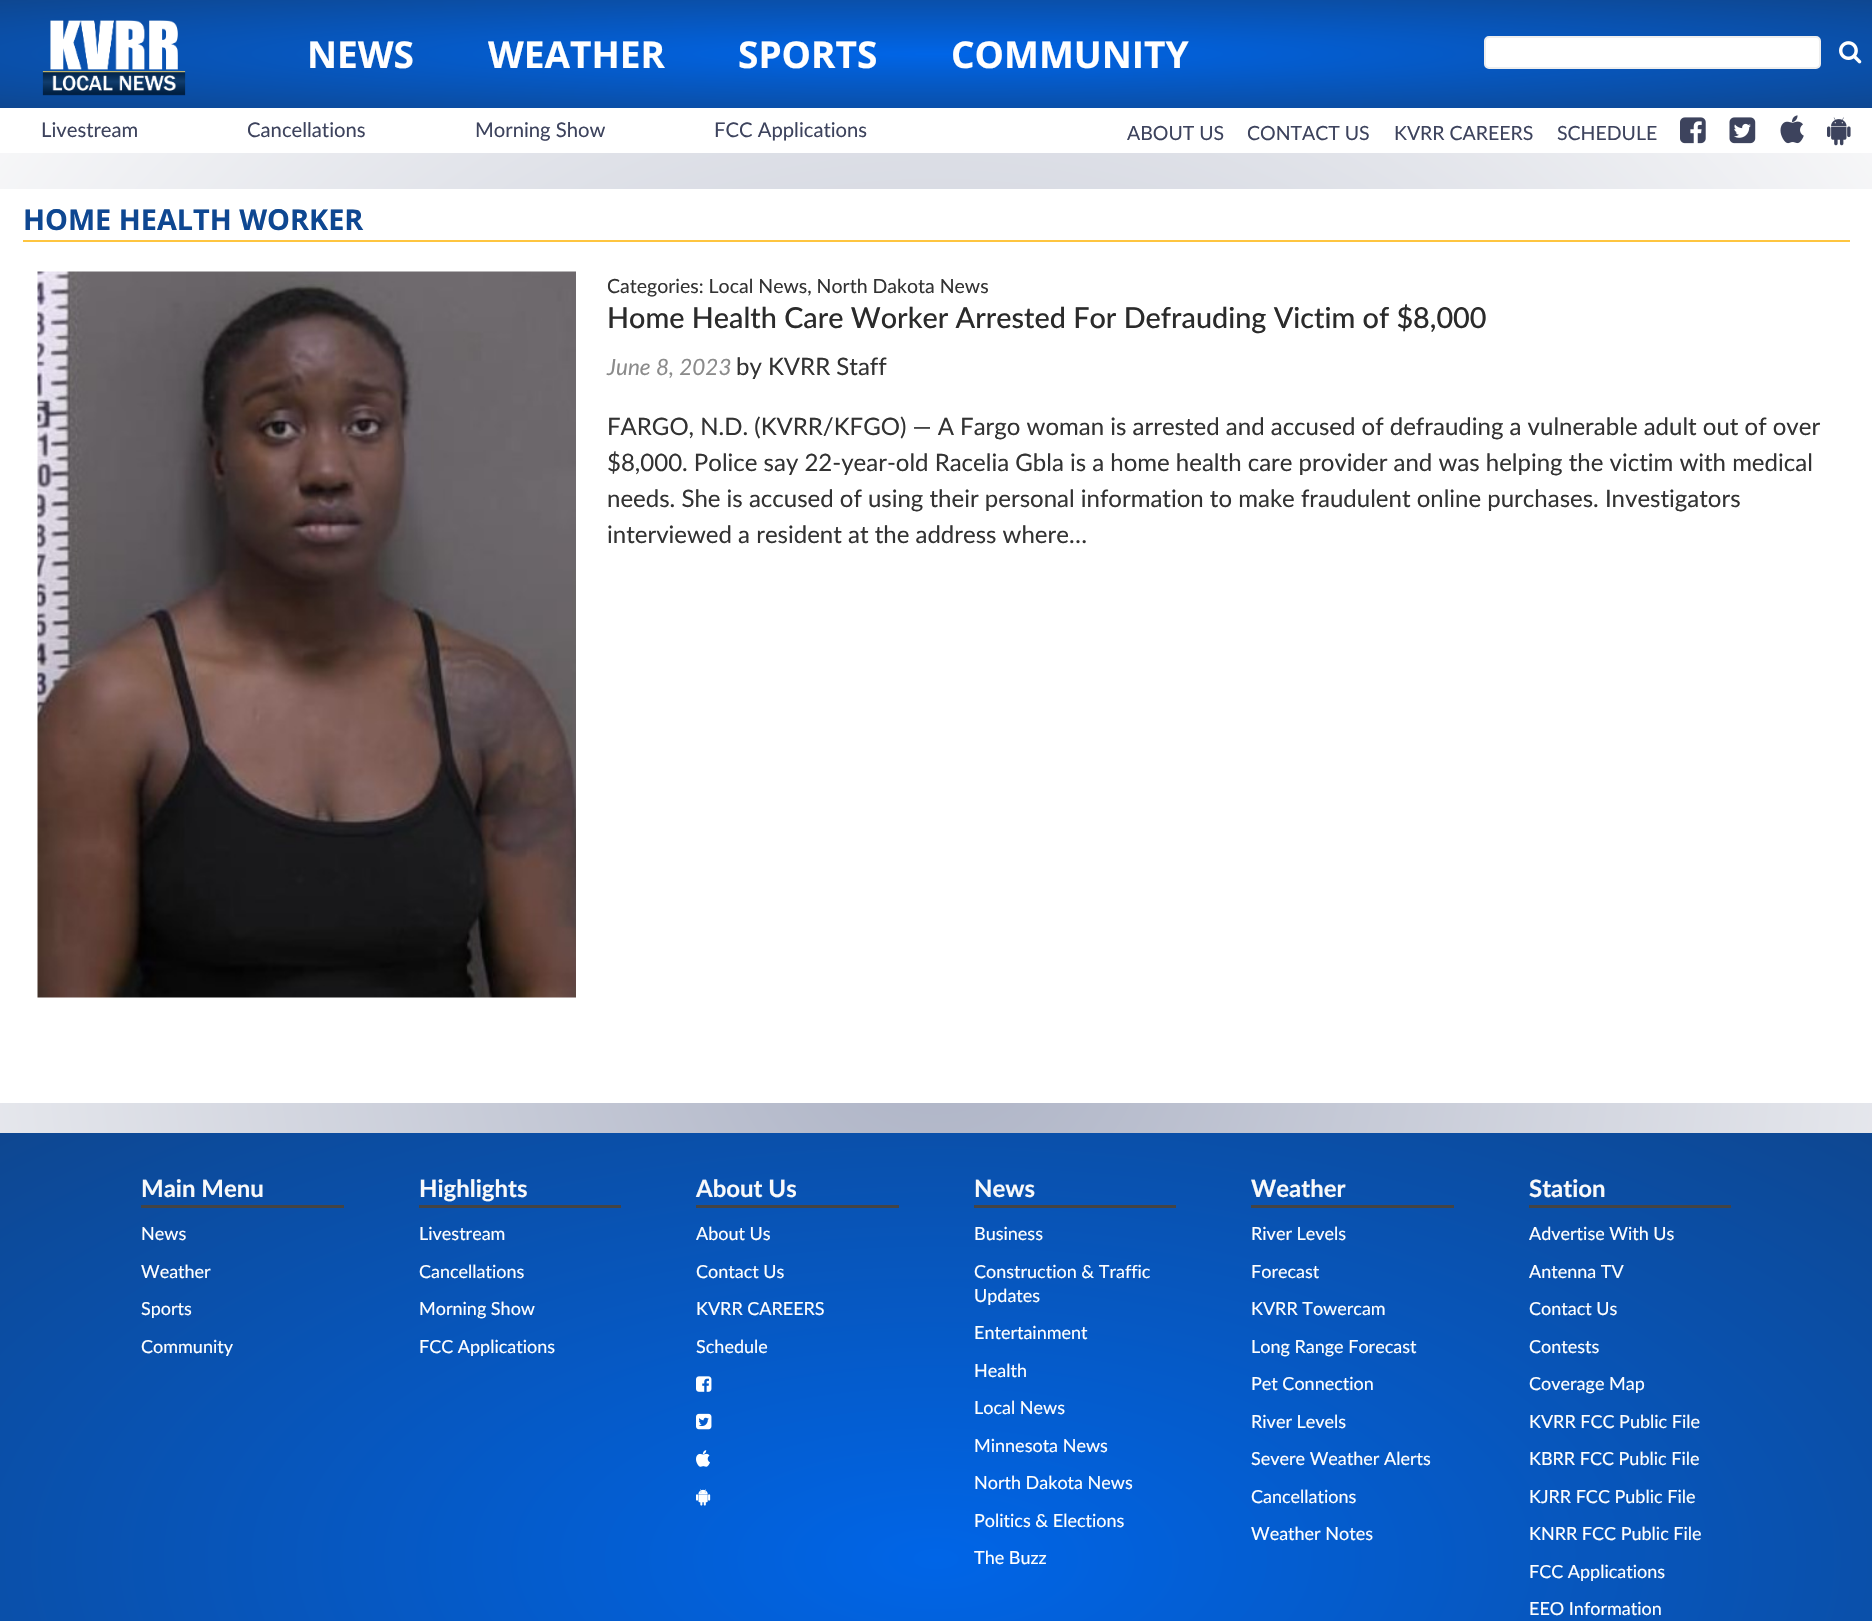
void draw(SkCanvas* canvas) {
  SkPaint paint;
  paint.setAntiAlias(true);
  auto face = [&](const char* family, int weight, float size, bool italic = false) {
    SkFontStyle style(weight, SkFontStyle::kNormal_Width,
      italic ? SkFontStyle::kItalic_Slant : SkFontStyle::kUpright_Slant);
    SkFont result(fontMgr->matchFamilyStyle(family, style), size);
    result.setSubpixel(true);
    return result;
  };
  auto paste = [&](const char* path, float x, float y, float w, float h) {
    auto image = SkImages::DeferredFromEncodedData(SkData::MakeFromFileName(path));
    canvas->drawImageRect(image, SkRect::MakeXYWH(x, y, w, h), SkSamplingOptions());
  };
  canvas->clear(0xffffffff);
  {
    const SkColor colors[] = {0xffabb1c4, 0xfffcfcfc};
    const float stops[] = {0, 1};
    SkMatrix m = SkMatrix::Translate(936, 993).preScale(1324, 1404);
    paint.setShader(SkGradientShader::MakeRadial({0, 0}, 1, colors, stops, 2, SkTileMode::kClamp, 0, &m));
    paint.setAlpha(255);
  }
  canvas->drawRect(SkRect::MakeXYWH(0, 153, 1872, 980), paint);
  {
    const SkColor colors[] = {0xff0065e7, 0xff0e4791};
    const float stops[] = {0, 1};
    SkMatrix m = SkMatrix::Translate(936, 54).preScale(1324, 76);
    paint.setShader(SkGradientShader::MakeRadial({0, 0}, 1, colors, stops, 2, SkTileMode::kClamp, 0, &m));
    paint.setAlpha(255);
  }
  canvas->drawRect(SkRect::MakeXYWH(0, 0, 1872, 108), paint);
  paste("img/1.png", 42, 20, 144, 76);
  paint.setShader(nullptr);
  paint.setColor(0xffffffff);
  canvas->drawRoundRect(SkRect::MakeXYWH(1485, 37, 335, 31), 4, 4, paint);
  paint.setStroke(true);
  paint.setStrokeWidth(2);
  paint.setColor(0xffeeeeee);
  canvas->drawRoundRect(SkRect::MakeXYWH(1485, 37, 335, 31), 4, 4, paint);
  paste("img/2.png", 1839, 41, 23, 23);
  paste("img/3.png", 1680, 117, 26, 27);
  paste("img/4.png", 1729, 117, 27, 27);
  paste("img/5.png", 1780, 115, 24, 29);
  paste("img/6.png", 1827, 117, 24, 29);
  paint.setStroke(false);
  paint.setColor(0xffffffff);
  canvas->drawRect(SkRect::MakeXYWH(0, 189, 1872, 914), paint);
  paint.setColor(0xfffec540);
  canvas->drawRect(SkRect::MakeXYWH(23, 240, 1827, 2), paint);
  paste("img/7.png", 37, 271, 539, 727);
  {
    const SkColor colors[] = {0xff0065e7, 0xff0e4791};
    const float stops[] = {0, 1};
    SkMatrix m = SkMatrix::Translate(936, 1559).preScale(1324, 604);
    paint.setShader(SkGradientShader::MakeRadial({0, 0}, 1, colors, stops, 2, SkTileMode::kClamp, 0, &m));
    paint.setAlpha(255);
  }
  canvas->drawRect(SkRect::MakeXYWH(0, 1133, 1872, 488), paint);
  paint.setShader(nullptr);
  {
    const struct { float x, y, w, h; SkColor color; } items[] = {
      {141, 1205, 203, 3, 0xff444444},
      {419, 1205, 202, 3, 0xff444444},
      {696, 1205, 203, 3, 0xff444444},
    };
    for (auto [x, y, w, h, color] : items) {
      paint.setColor(color);
      canvas->drawRect(SkRect::MakeXYWH(x, y, w, h), paint);
    }
  }
  paste("img/8.png", 696, 1376, 16, 16);
  paste("img/9.png", 696, 1413, 16, 17);
  paste("img/10.png", 696, 1450, 14, 17);
  paste("img/11.png", 696, 1489, 15, 17);
  {
    const struct { float x, y, w, h; SkColor color; } items[] = {
      {974, 1205, 202, 3, 0xff444444},
      {1251, 1205, 203, 3, 0xff444444},
      {1529, 1205, 202, 3, 0xff444444},
    };
    for (auto [x, y, w, h, color] : items) {
      paint.setColor(color);
      canvas->drawRect(SkRect::MakeXYWH(x, y, w, h), paint);
    }
  }
  auto f0 = face("Open Sans", 700, 37);
  paint.setColor(0xffffffff);
  {
    const struct { const char* s; float x, y; } items[] = {
      {"NEWS", 307, 68},
      {"WEATHER", 488, 68},
      {"SPORTS", 738, 68},
      {"COMMUNITY", 951, 68},
    };
    for (auto [s, x, y] : items) {
      canvas->drawString(s, x, y, f0, paint);
    }
  }
  auto f1 = face("Lato", 400, 20.25f);
  paint.setColor(0xff3d435d);
  {
    const struct { const char* s; float x, y; } items[] = {
      {"Livestream", 41, 137},
      {"Cancellations", 247, 137},
      {"Morning Show", 475, 137},
      {"FCC Applications", 714, 137},
    };
    for (auto [s, x, y] : items) {
      canvas->drawString(s, x, y, f1, paint);
    }
  }
  auto f2 = face("Lato", 400, 19.5f);
  {
    const struct { const char* s; float x, y; } items[] = {
      {"ABOUT US", 1127, 140},
      {"CONTACT US", 1247, 140},
      {"KVRR CAREERS", 1394, 140},
      {"SCHEDULE", 1557, 140},
    };
    for (auto [s, x, y] : items) {
      canvas->drawString(s, x, y, f2, paint);
    }
  }
  auto f3 = face("Open Sans", 700, 28.8f);
  paint.setColor(0xff0e4791);
  canvas->drawString("HOME HEALTH WORKER", 23, 230, f3, paint);
  paint.setColor(0xff333333);
  canvas->drawString("Categories: Local News, North Dakota News", 607, 293, f2, paint);
  auto f4 = face("Lato", 500, 28.8f);
  paint.setColor(0xff2b2b2b);
  canvas->drawString("Home Health Care Worker Arrested For Defrauding Victim of $8,000", 607, 328, f4, paint);
  auto f5 = face("Lato", 400, 22.5f, true);
  paint.setColor(0xff8b8b8b);
  canvas->drawString("June 8, 2023", 607, 375, f5, paint);
  auto f6 = face("Lato", 400, 24);
  paint.setColor(0xff333333);
  {
    const struct { const char* s; float x, y; } items[] = {
      {"by KVRR Staff", 736, 375},
      {"FARGO, N.D. (KVRR/KFGO) — A Fargo woman is arrested and accused of defrauding a vulnerable adult out of over", 607, 435},
      {"$8,000. Police say 22-year-old Racelia Gbla is a home health care provider and was helping the victim with medical", 607, 471},
      {"needs. She is accused of using their personal information to make fraudulent online purchases. Investigators", 607, 507},
      {"interviewed a resident at the address where…", 607, 543},
    };
    for (auto [s, x, y] : items) {
      canvas->drawString(s, x, y, f6, paint);
    }
  }
  auto f7 = face("Lato", 700, 24);
  paint.setColor(0xfff8f9fa);
  canvas->drawString("Main Menu", 141, 1197, f7, paint);
  auto f8 = face("Lato", 400, 18);
  paint.setColor(0xffffffff);
  {
    const struct { const char* s; float x, y; } items[] = {
      {"News", 141, 1240},
      {"Weather", 141, 1278},
      {"Sports", 141, 1315},
      {"Community", 141, 1353},
    };
    for (auto [s, x, y] : items) {
      canvas->drawString(s, x, y, f8, paint);
    }
  }
  paint.setColor(0xfff8f9fa);
  canvas->drawString("Highlights", 419, 1197, f7, paint);
  paint.setColor(0xffffffff);
  {
    const struct { const char* s; float x, y; } items[] = {
      {"Livestream", 419, 1240},
      {"Cancellations", 419, 1278},
      {"Morning Show", 419, 1315},
      {"FCC Applications", 419, 1353},
    };
    for (auto [s, x, y] : items) {
      canvas->drawString(s, x, y, f8, paint);
    }
  }
  paint.setColor(0xfff8f9fa);
  canvas->drawString("About Us", 696, 1197, f7, paint);
  paint.setColor(0xffffffff);
  {
    const struct { const char* s; float x, y; } items[] = {
      {"About Us", 696, 1240},
      {"Contact Us", 696, 1278},
      {"KVRR CAREERS", 696, 1315},
      {"Schedule", 696, 1353},
    };
    for (auto [s, x, y] : items) {
      canvas->drawString(s, x, y, f8, paint);
    }
  }
  paint.setColor(0xfff8f9fa);
  canvas->drawString("News", 974, 1197, f7, paint);
  paint.setColor(0xffffffff);
  {
    const struct { const char* s; float x, y; } items[] = {
      {"Business", 974, 1240},
      {"Construction & Traffic", 974, 1278},
      {"Updates", 974, 1302},
      {"Entertainment", 974, 1339},
      {"Health", 974, 1377},
      {"Local News", 974, 1414},
      {"Minnesota News", 974, 1452},
      {"North Dakota News", 974, 1489},
      {"Politics & Elections", 974, 1527},
      {"The Buzz", 974, 1564},
    };
    for (auto [s, x, y] : items) {
      canvas->drawString(s, x, y, f8, paint);
    }
  }
  paint.setColor(0xfff8f9fa);
  canvas->drawString("Weather", 1251, 1197, f7, paint);
  paint.setColor(0xffffffff);
  {
    const struct { const char* s; float x, y; } items[] = {
      {"River Levels", 1251, 1240},
      {"Forecast", 1251, 1278},
      {"KVRR Towercam", 1251, 1315},
      {"Long Range Forecast", 1251, 1353},
      {"Pet Connection", 1251, 1390},
      {"River Levels", 1251, 1428},
      {"Severe Weather Alerts", 1251, 1465},
      {"Cancellations", 1251, 1503},
      {"Weather Notes", 1251, 1540},
    };
    for (auto [s, x, y] : items) {
      canvas->drawString(s, x, y, f8, paint);
    }
  }
  paint.setColor(0xfff8f9fa);
  canvas->drawString("Station", 1529, 1197, f7, paint);
  paint.setColor(0xffffffff);
  {
    const struct { const char* s; float x, y; } items[] = {
      {"Advertise With Us", 1529, 1240},
      {"Antenna TV", 1529, 1278},
      {"Contact Us", 1529, 1315},
      {"Contests", 1529, 1353},
      {"Coverage Map", 1529, 1390},
      {"KVRR FCC Public File", 1529, 1428},
      {"KBRR FCC Public File", 1529, 1465},
      {"KJRR FCC Public File", 1529, 1503},
      {"KNRR FCC Public File", 1529, 1540},
      {"FCC Applications", 1529, 1578},
      {"EEO Information", 1529, 1615},
    };
    for (auto [s, x, y] : items) {
      canvas->drawString(s, x, y, f8, paint);
    }
  }
}
